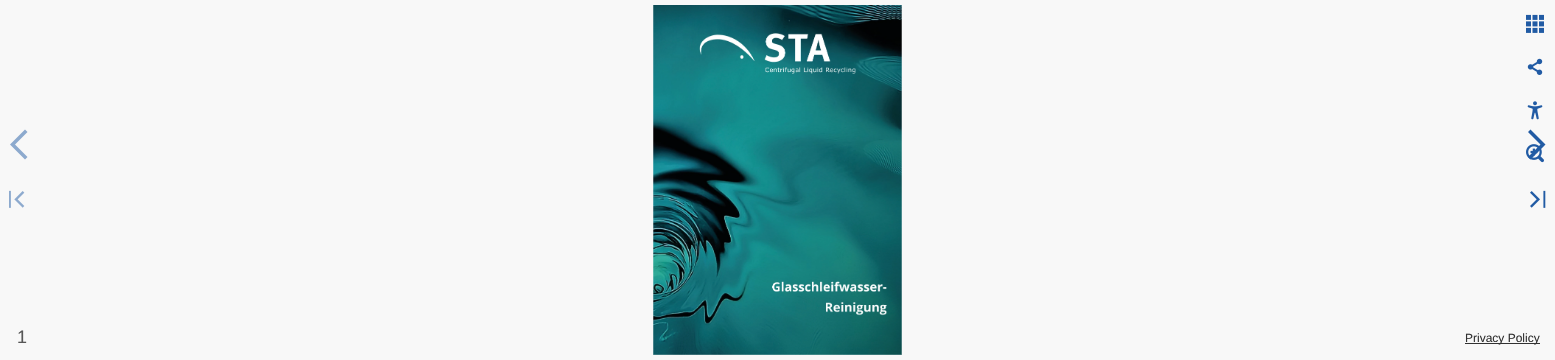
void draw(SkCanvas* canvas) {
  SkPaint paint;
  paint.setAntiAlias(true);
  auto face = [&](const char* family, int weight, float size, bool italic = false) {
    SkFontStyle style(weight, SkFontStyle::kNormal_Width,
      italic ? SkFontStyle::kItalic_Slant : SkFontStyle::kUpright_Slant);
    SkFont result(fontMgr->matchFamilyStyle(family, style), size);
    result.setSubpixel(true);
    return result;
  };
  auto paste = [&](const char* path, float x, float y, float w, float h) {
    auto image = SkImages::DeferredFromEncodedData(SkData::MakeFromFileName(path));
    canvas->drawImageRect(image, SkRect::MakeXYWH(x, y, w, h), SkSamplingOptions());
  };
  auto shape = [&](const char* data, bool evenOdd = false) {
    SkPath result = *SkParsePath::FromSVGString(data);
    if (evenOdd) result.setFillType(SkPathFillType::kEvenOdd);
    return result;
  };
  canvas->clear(0xfff8f8f8);
  paint.setColor(0xff8daace);
  canvas->drawPath(shape("M27.5 132L25 129.5L10 144.5L25 159.5L27.5 157L15 144.5Z"), paint);
  paste("img/1.png", 9, 190, 16, 18);
  paste("img/2.png", 653, 5, 249, 350);
  paste("img/3.png", 653, 5, 249, 350);
  paste("img/4.png", 1526, 14, 18, 19);
  paste("img/5.png", 1527, 58, 16, 17);
  paste("img/6.png", 1527, 101, 16, 19);
  paint.setColor(0xff215ba4);
  canvas->drawPath(shape("M1545.5 144.5L1530.5 129.5L1528 132L1540.5 144.5L1528 157L1530.5 159.5Z"), paint);
  paste("img/7.png", 1526, 144, 18, 19);
  paste("img/8.png", 1530, 190, 16, 18);
  paint.setColor(0xff323232);
  canvas->drawRect(SkRect::MakeXYWH(1465, 343, 75, 1), paint);
  auto f0 = face("Liberation Sans", 400, 18);
  paint.setColor(0xff575757);
  canvas->drawString("1", 17, 343, f0, paint);
  auto f1 = face("Liberation Sans", 400, 12);
  paint.setColor(0xff323232);
  canvas->drawString("Privacy Policy", 1465, 342, f1, paint);
}
